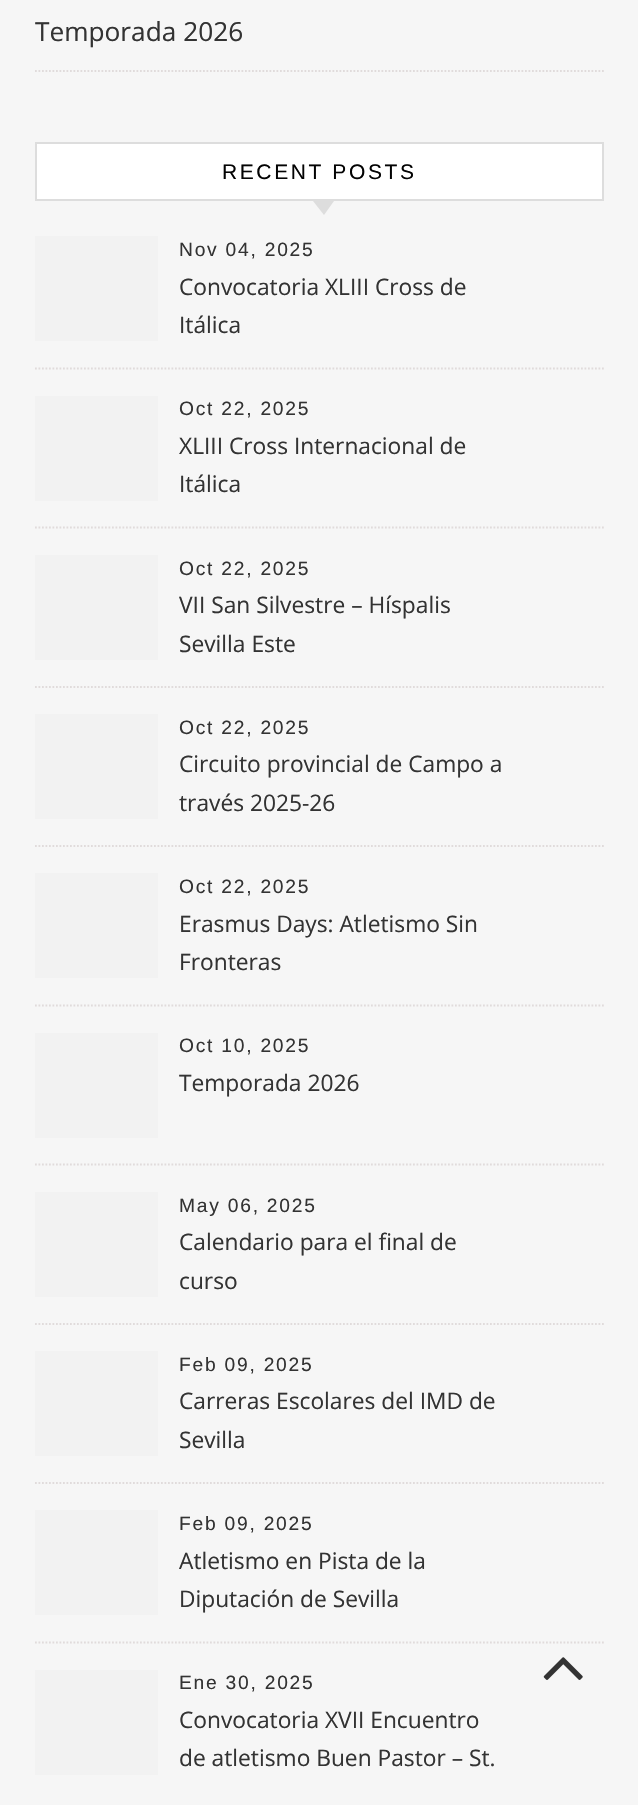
void draw(SkCanvas* canvas) {
  SkPaint paint;
  paint.setAntiAlias(true);
  auto face = [&](const char* family, int weight, float size, bool italic = false) {
    SkFontStyle style(weight, SkFontStyle::kNormal_Width,
      italic ? SkFontStyle::kItalic_Slant : SkFontStyle::kUpright_Slant);
    SkFont result(fontMgr->matchFamilyStyle(family, style), size);
    result.setSubpixel(true);
    return result;
  };
  auto writeSpaced = [&](const char* s, float x, float y, const SkFont& font, const SkPaint& ink, float letter, float word) {
    std::vector<SkGlyphID> glyphs(font.countText(s, strlen(s), SkTextEncoding::kUTF8));
    std::vector<float> xs(glyphs.size());
    font.textToGlyphs(s, strlen(s), SkTextEncoding::kUTF8, glyphs);
    font.getXPos(glyphs, xs, x);
    float extra = 0;
    for (size_t i = 0; i < glyphs.size(); i++) {
      xs[i] += extra;
      extra += letter + word * (glyphs[i] == font.unicharToGlyph(' '));
    }
    canvas->drawTextBlob(SkTextBlob::MakeFromPosHGlyphs(glyphs, xs, y, font), 0, 0, ink);
  };
  auto paste = [&](const char* path, float x, float y, float w, float h) {
    auto image = SkImages::DeferredFromEncodedData(SkData::MakeFromFileName(path));
    canvas->drawImageRect(image, SkRect::MakeXYWH(x, y, w, h), SkSamplingOptions());
  };
  auto shape = [&](const char* data, bool evenOdd = false) {
    SkPath result = *SkParsePath::FromSVGString(data);
    if (evenOdd) result.setFillType(SkPathFillType::kEvenOdd);
    return result;
  };
  canvas->clear(0xfff6f6f6);
  paint.setStroke(true);
  paint.setStrokeWidth(1.8f);
  paint.setColor(0xffe0dbdb);
  paint.setPathEffect(SkDashPathEffect::Make({{1.75f, 1.75f}}, 0));
  canvas->drawPath(shape("M35 71H604"), paint);
  paint.setPathEffect(nullptr);
  paint.setStroke(false);
  paint.setColor(0xffffffff);
  canvas->drawRect(SkRect::MakeXYWH(36, 143, 567, 57), paint);
  paint.setStroke(true);
  paint.setStrokeWidth(2);
  paint.setColor(0xffdddddd);
  canvas->drawRect(SkRect::MakeXYWH(36, 143, 567, 57), paint);
  paint.setStroke(false);
  canvas->drawPath(shape("M313 201H334L324 215Z"), paint);
  paint.setStroke(true);
  paint.setStrokeWidth(1.8f);
  paint.setColor(0xffe0dbdb);
  paint.setPathEffect(SkDashPathEffect::Make({{1.75f, 1.75f}}, 0));
  canvas->drawPath(shape("M35 368.5H604"), paint);
  paint.setPathEffect(nullptr);
  paint.setStroke(false);
  paint.setColor(0xfff2f2f2);
  canvas->drawRect(SkRect::MakeXYWH(35, 236, 123, 105), paint);
  paint.setStroke(true);
  paint.setColor(0xffe0dbdb);
  paint.setPathEffect(SkDashPathEffect::Make({{1.75f, 1.75f}}, 0));
  canvas->drawPath(shape("M35 527.5H604"), paint);
  paint.setPathEffect(nullptr);
  paint.setStroke(false);
  paint.setColor(0xfff2f2f2);
  canvas->drawRect(SkRect::MakeXYWH(35, 396, 123, 105), paint);
  paint.setStroke(true);
  paint.setColor(0xffe0dbdb);
  paint.setPathEffect(SkDashPathEffect::Make({{1.75f, 1.75f}}, 0));
  canvas->drawPath(shape("M35 687H604"), paint);
  paint.setPathEffect(nullptr);
  paint.setStroke(false);
  paint.setColor(0xfff2f2f2);
  canvas->drawRect(SkRect::MakeXYWH(35, 555, 123, 105), paint);
  paint.setStroke(true);
  paint.setColor(0xffe0dbdb);
  paint.setPathEffect(SkDashPathEffect::Make({{1.75f, 1.75f}}, 0));
  canvas->drawPath(shape("M35 846H604"), paint);
  paint.setPathEffect(nullptr);
  paint.setStroke(false);
  paint.setColor(0xfff2f2f2);
  canvas->drawRect(SkRect::MakeXYWH(35, 714, 123, 105), paint);
  paint.setStroke(true);
  paint.setColor(0xffe0dbdb);
  paint.setPathEffect(SkDashPathEffect::Make({{1.75f, 1.75f}}, 0));
  canvas->drawPath(shape("M35 1005.5H604"), paint);
  paint.setPathEffect(nullptr);
  paint.setStroke(false);
  paint.setColor(0xfff2f2f2);
  canvas->drawRect(SkRect::MakeXYWH(35, 873, 123, 105), paint);
  paint.setStroke(true);
  paint.setColor(0xffe0dbdb);
  paint.setPathEffect(SkDashPathEffect::Make({{1.75f, 1.75f}}, 0));
  canvas->drawPath(shape("M35 1164.5H604"), paint);
  paint.setPathEffect(nullptr);
  paint.setStroke(false);
  paint.setColor(0xfff2f2f2);
  canvas->drawRect(SkRect::MakeXYWH(35, 1033, 123, 105), paint);
  paint.setStroke(true);
  paint.setColor(0xffe0dbdb);
  paint.setPathEffect(SkDashPathEffect::Make({{1.75f, 1.75f}}, 0));
  canvas->drawPath(shape("M35 1324H604"), paint);
  paint.setPathEffect(nullptr);
  paint.setStroke(false);
  paint.setColor(0xfff2f2f2);
  canvas->drawRect(SkRect::MakeXYWH(35, 1192, 123, 105), paint);
  paint.setStroke(true);
  paint.setColor(0xffe0dbdb);
  paint.setPathEffect(SkDashPathEffect::Make({{1.75f, 1.75f}}, 0));
  canvas->drawPath(shape("M35 1483H604"), paint);
  paint.setPathEffect(nullptr);
  paint.setStroke(false);
  paint.setColor(0xfff2f2f2);
  canvas->drawRect(SkRect::MakeXYWH(35, 1351, 123, 105), paint);
  paint.setStroke(true);
  paint.setColor(0xffe0dbdb);
  paint.setPathEffect(SkDashPathEffect::Make({{1.75f, 1.75f}}, 0));
  canvas->drawPath(shape("M35 1642.5H604"), paint);
  paint.setPathEffect(nullptr);
  paint.setStroke(false);
  paint.setColor(0xfff2f2f2);
  canvas->drawRect(SkRect::MakeXYWH(35, 1510, 123, 105), paint);
  canvas->drawRect(SkRect::MakeXYWH(35, 1670, 123, 105), paint);
  paste("img/1.png", 543, 1657, 40, 23);
  auto f0 = face("Open Sans", 400, 26.25f);
  paint.setColor(0xff333333);
  canvas->drawString("Temporada 2026", 35, 41, f0, paint);
  auto f1 = face("Liberation Sans", 400, 21);
  paint.setColor(0xff030303);
  writeSpaced("RECENT POSTS", 222, 179, f1, paint, 2.6f, 0);
  auto f2 = face("Liberation Sans", 400, 19.25f);
  paint.setColor(0xff333333);
  writeSpaced("Nov 04, 2025", 179, 256, f2, paint, 1.75f, 0);
  auto f3 = face("Open Sans", 400, 22.75f);
  canvas->drawString("Convocatoria XLIII Cross de", 179, 295, f3, paint);
  canvas->drawString("Itálica", 179, 333, f3, paint);
  writeSpaced("Oct 22, 2025", 179, 415, f2, paint, 1.75f, 0);
  canvas->drawString("XLIII Cross Internacional de", 179, 454, f3, paint);
  canvas->drawString("Itálica", 179, 492, f3, paint);
  writeSpaced("Oct 22, 2025", 179, 575, f2, paint, 1.75f, 0);
  canvas->drawString("VII San Silvestre – Híspalis", 179, 613, f3, paint);
  canvas->drawString("Sevilla Este", 179, 652, f3, paint);
  writeSpaced("Oct 22, 2025", 179, 734, f2, paint, 1.75f, 0);
  canvas->drawString("Circuito provincial de Campo a", 179, 772, f3, paint);
  canvas->drawString("través 2025-26", 179, 811, f3, paint);
  writeSpaced("Oct 22, 2025", 179, 893, f2, paint, 1.75f, 0);
  canvas->drawString("Erasmus Days: Atletismo Sin", 179, 932, f3, paint);
  canvas->drawString("Fronteras", 179, 970, f3, paint);
  writeSpaced("Oct 10, 2025", 179, 1052, f2, paint, 1.75f, 0);
  canvas->save();
  canvas->clipRect(SkRect::MakeXYWH(179, 1062, 323, 81));
  canvas->drawString("Temporada 2026", 179, 1091, f3, paint);
  canvas->restore();
  writeSpaced("May 06, 2025", 179, 1212, f2, paint, 1.75f, 0);
  canvas->drawString("Calendario para el final de", 179, 1250, f3, paint);
  canvas->drawString("curso", 179, 1289, f3, paint);
  writeSpaced("Feb 09, 2025", 179, 1371, f2, paint, 1.75f, 0);
  canvas->drawString("Carreras Escolares del IMD de", 179, 1409, f3, paint);
  canvas->drawString("Sevilla", 179, 1448, f3, paint);
  writeSpaced("Feb 09, 2025", 179, 1530, f2, paint, 1.75f, 0);
  canvas->drawString("Atletismo en Pista de la", 179, 1569, f3, paint);
  canvas->drawString("Diputación de Sevilla", 179, 1607, f3, paint);
  writeSpaced("Ene 30, 2025", 179, 1689, f2, paint, 1.75f, 0);
  canvas->drawString("Convocatoria XVII Encuentro", 179, 1728, f3, paint);
  canvas->drawString("de atletismo Buen Pastor – St.", 179, 1766, f3, paint);
}
